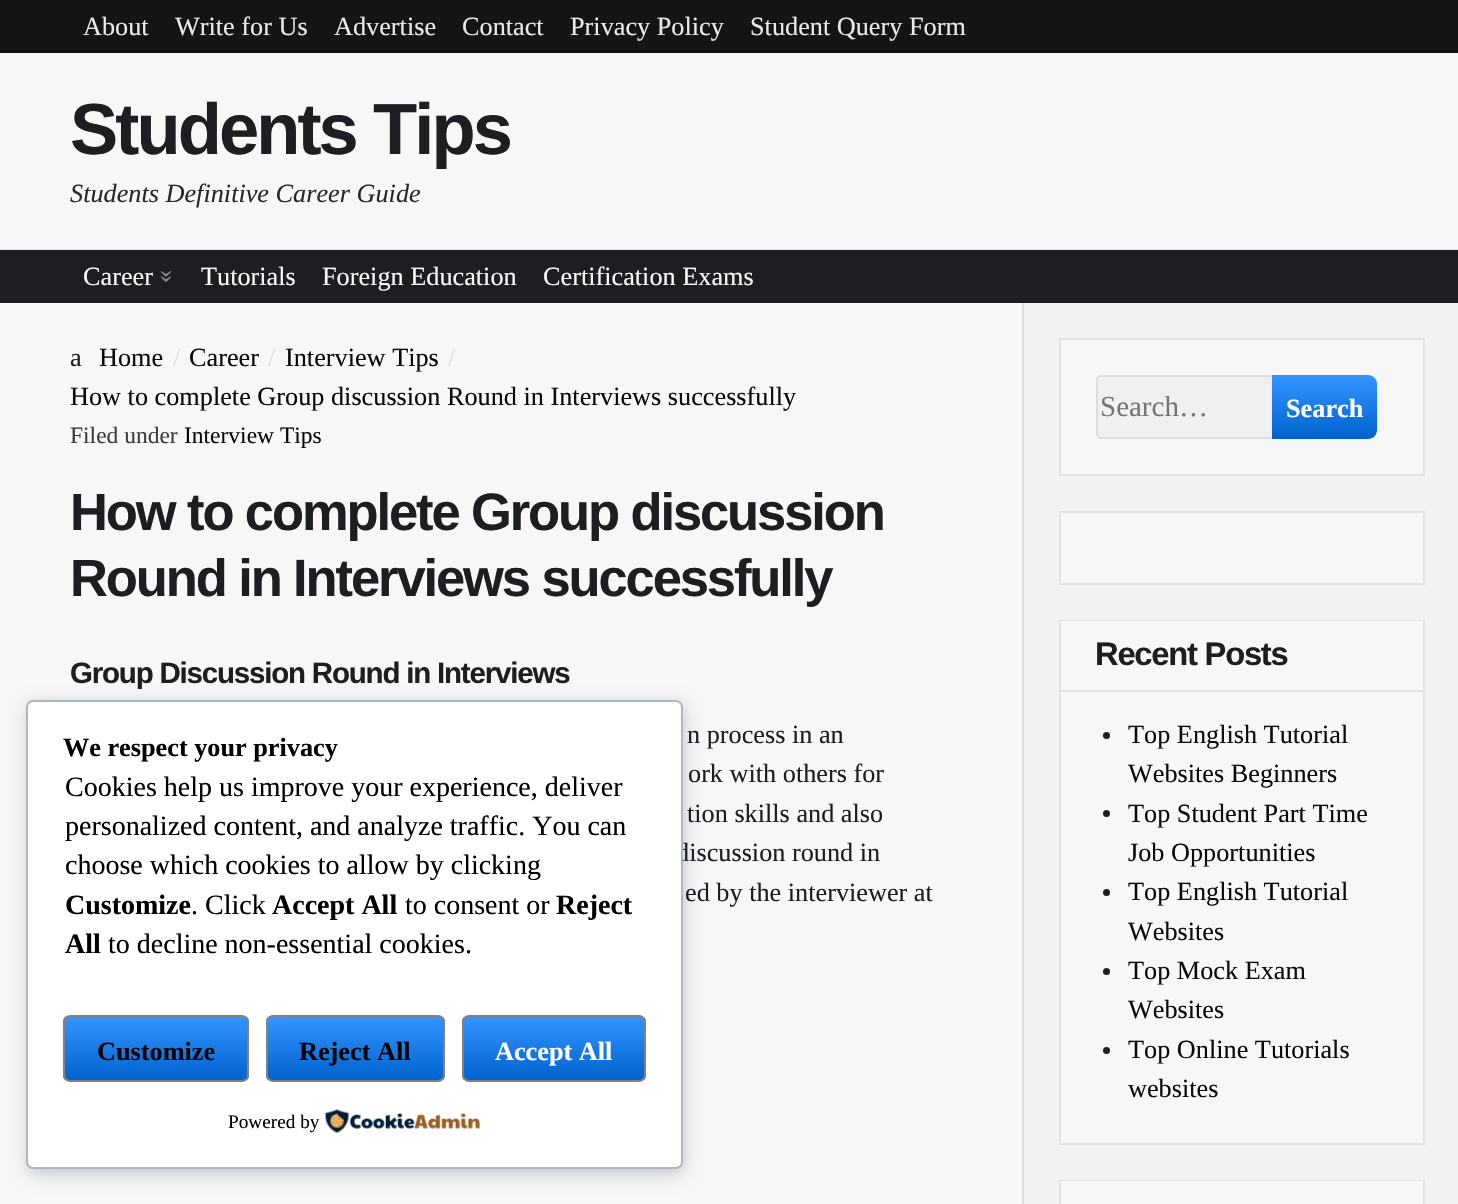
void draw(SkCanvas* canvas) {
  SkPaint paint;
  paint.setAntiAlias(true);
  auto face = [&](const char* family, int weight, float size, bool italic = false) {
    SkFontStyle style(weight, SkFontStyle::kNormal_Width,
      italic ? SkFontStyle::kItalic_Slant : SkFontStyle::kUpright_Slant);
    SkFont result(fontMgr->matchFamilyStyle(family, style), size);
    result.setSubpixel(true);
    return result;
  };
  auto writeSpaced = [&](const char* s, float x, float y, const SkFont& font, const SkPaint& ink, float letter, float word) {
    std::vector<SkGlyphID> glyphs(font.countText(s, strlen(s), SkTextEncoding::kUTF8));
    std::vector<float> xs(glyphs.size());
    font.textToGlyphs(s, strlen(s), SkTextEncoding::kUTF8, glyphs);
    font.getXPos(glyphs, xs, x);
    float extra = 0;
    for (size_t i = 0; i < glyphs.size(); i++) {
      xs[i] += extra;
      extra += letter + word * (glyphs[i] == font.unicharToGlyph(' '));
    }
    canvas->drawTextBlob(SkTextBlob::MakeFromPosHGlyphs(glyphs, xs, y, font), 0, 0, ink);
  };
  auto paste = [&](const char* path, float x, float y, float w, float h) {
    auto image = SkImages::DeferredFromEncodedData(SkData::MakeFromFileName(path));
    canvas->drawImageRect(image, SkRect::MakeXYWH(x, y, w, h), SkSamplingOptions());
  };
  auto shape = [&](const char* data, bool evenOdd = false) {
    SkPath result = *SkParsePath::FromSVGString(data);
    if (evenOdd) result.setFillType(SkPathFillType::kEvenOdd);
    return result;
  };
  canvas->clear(0xfff7f7f8);
  {
    const struct { float x, y, w, h; SkColor color; } items[] = {
      {0, 249, 1458, 1, 0xffe2e2e4},
      {0, 0, 1458, 53, 0xff131416},
      {0, 251, 1458, 52, 0xff1c1e21},
      {0, 250, 1458, 1, 0xff1d1f22},
      {1024, 303, 434, 901, 0xfff1f2f3},
      {1022, 303, 2, 901, 0xffdddedf},
    };
    for (auto [x, y, w, h, color] : items) {
      paint.setColor(color);
      canvas->drawRect(SkRect::MakeXYWH(x, y, w, h), paint);
    }
  }
  paint.setColor(0xfff7f7f8);
  canvas->drawRect(SkRect::MakeXYWH(1060, 339, 364, 136), paint);
  paint.setStroke(true);
  paint.setStrokeWidth(2);
  paint.setColor(0xffe2e2e4);
  canvas->drawRect(SkRect::MakeXYWH(1060, 339, 364, 136), paint);
  paint.setStroke(false);
  paint.setColor(0xffeef0f1);
  canvas->drawRoundRect(SkRect::MakeXYWH(1096, 375, 187, 64), 5, 5, paint);
  paint.setStroke(true);
  paint.setColor(0x1a383d42);
  canvas->drawRoundRect(SkRect::MakeXYWH(1097, 376, 185, 62), 4, 4, paint);
  paint.setStroke(false);
  {
    const SkColor colors[] = {0xff3395ff, 0xff0062cc};
    const float stops[] = {0, 1};
    const SkPoint ends[] = {{1325, 375}, {1325, 439}};
    paint.setShader(SkGradientShader::MakeLinear(ends, colors, stops, 2, SkTileMode::kClamp));
    paint.setAlpha(255);
  }
  canvas->drawPath(shape("M1272 375H1368C1373 375 1377 379 1377 384V430C1377 435 1373 439 1368 439H1272Z"), paint);
  paint.setShader(nullptr);
  paint.setColor(0xfff7f7f8);
  canvas->drawRect(SkRect::MakeXYWH(1060, 512, 364, 72), paint);
  paint.setStroke(true);
  paint.setColor(0xffe2e2e4);
  canvas->drawRect(SkRect::MakeXYWH(1060, 512, 364, 72), paint);
  paint.setStroke(false);
  paint.setColor(0xfff7f7f8);
  canvas->drawRect(SkRect::MakeXYWH(1061, 692, 362, 451), paint);
  paint.setStroke(true);
  paint.setColor(0xffe2e2e4);
  canvas->drawRect(SkRect::MakeXYWH(1060, 621, 364, 523), paint);
  paint.setStroke(false);
  paint.setColor(0xfff7f7f8);
  canvas->drawRect(SkRect::MakeXYWH(1061, 621, 362, 69), paint);
  paint.setColor(0xffe2e2e4);
  canvas->drawRect(SkRect::MakeXYWH(1061, 690, 362, 2), paint);
  paint.setColor(0xff1c1e21);
  canvas->drawCircle(1106.5f, 735.5f, 3.5f, paint);
  canvas->drawCircle(1106.5f, 813.5f, 3.5f, paint);
  canvas->drawCircle(1106.5f, 892.5f, 3.5f, paint);
  canvas->drawCircle(1106.5f, 971.5f, 3.5f, paint);
  canvas->drawCircle(1106.5f, 1050.5f, 3.5f, paint);
  paint.setStroke(true);
  paint.setColor(0xffe2e2e4);
  canvas->drawRect(SkRect::MakeXYWH(1060, 1181, 364, 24), paint);
  paint.setStroke(false);
  paint.setColor(0xfff7f7f8);
  canvas->drawRect(SkRect::MakeXYWH(1061, 1181, 362, 23), paint);
  paint.setColor(0x33000000);
  paint.setMaskFilter(SkMaskFilter::MakeBlur(kNormal_SkBlurStyle, 9));
  canvas->drawRoundRect(SkRect::MakeXYWH(28, 705, 656, 469), 7, 7, paint);
  paint.setMaskFilter(nullptr);
  auto f0 = face("Liberation Serif", 400, 26.25f);
  paint.setColor(0xffe6e8ea);
  {
    const struct { const char* s; float x, y; } items[] = {
      {"About", 83, 35},
      {"Write for Us", 175, 35},
      {"Advertise", 334, 35},
      {"Contact", 462, 35},
      {"Privacy Policy", 570, 35},
      {"Student Query Form", 750, 35},
    };
    for (auto [s, x, y] : items) {
      canvas->drawString(s, x, y, f0, paint);
    }
  }
  auto f1 = face("Liberation Sans", 700, 72.25f);
  paint.setColor(0xff1c1e21);
  writeSpaced("Students Tips", 70, 154, f1, paint, -2.9f, 0);
  auto f2 = face("Liberation Serif", 400, 26.25f, true);
  paint.setColor(0xff26292c);
  canvas->drawString("Students Definitive Career Guide", 70, 202, f2, paint);
  paint.setColor(0xfff7f7f8);
  canvas->drawString("Career", 83, 285, f0, paint);
  paint.setColor(0xff8a8b8d);
  canvas->save();
  canvas->rotate(90, 160, 270);
  canvas->drawString("»", 160, 270, f0, paint);
  canvas->restore();
  paint.setColor(0xfff7f7f8);
  {
    const struct { const char* s; float x, y; } items[] = {
      {"Tutorials", 201, 285},
      {"Foreign Education", 322, 285},
      {"Certification Exams", 543, 285},
    };
    for (auto [s, x, y] : items) {
      canvas->drawString(s, x, y, f0, paint);
    }
  }
  paint.setColor(0xff090a0b);
  canvas->drawString("Home", 99, 366, f0, paint);
  paint.setColor(0xffdee0e3);
  canvas->drawString("/", 173, 366, f0, paint);
  paint.setColor(0xff090a0b);
  canvas->drawString("Career", 189, 366, f0, paint);
  paint.setColor(0xffdee0e3);
  canvas->drawString("/", 268, 366, f0, paint);
  paint.setColor(0xff090a0b);
  canvas->drawString("Interview Tips", 285, 366, f0, paint);
  paint.setColor(0xffdee0e3);
  canvas->drawString("/", 448, 366, f0, paint);
  paint.setColor(0xff090a0b);
  canvas->drawString("How to complete Group discussion Round in Interviews successfully", 70, 405, f0, paint);
  paint.setColor(0xff1c1e21);
  canvas->drawString("a", 70, 366, f0, paint);
  auto f3 = face("Liberation Serif", 400, 23.5f);
  paint.setColor(0xff383d42);
  canvas->drawString("Filed under", 70, 443, f3, paint);
  paint.setColor(0xff090a0b);
  canvas->drawString("Interview Tips", 184, 443, f3, paint);
  auto f4 = face("Liberation Sans", 700, 52.5f);
  paint.setColor(0xff1c1e21);
  writeSpaced("How to complete Group discussion", 70, 530, f4, paint, -2.1f, 0);
  writeSpaced("Round in Interviews successfully", 70, 596, f4, paint, -2.1f, 0);
  auto f5 = face("Liberation Sans", 700, 29.5f);
  writeSpaced("Group Discussion Round in Interviews", 70, 683, f5, paint, -1.2f, 0);
  {
    const struct { const char* s; float x, y; } items[] = {
      {"n process in an", 687, 743},
      {"ork with others for", 688, 782},
      {"tion skills and also", 687, 822},
      {"discussion round in", 676, 861},
      {"ed by the interviewer at", 685, 901},
    };
    for (auto [s, x, y] : items) {
      canvas->drawString(s, x, y, f0, paint);
    }
  }
  auto f6 = face("Liberation Serif", 400, 29);
  paint.setColor(0xff757575);
  canvas->drawString("Search…", 1100, 416, f6, paint);
  auto f7 = face("Liberation Serif", 700, 26.25f);
  paint.setColor(0xffffffff);
  canvas->drawString("Search", 1286, 417, f7, paint);
  auto f8 = face("Liberation Sans", 700, 32.75f);
  paint.setColor(0xff1c1e21);
  writeSpaced("Recent Posts", 1095, 665, f8, paint, -1.25f, 0);
  paint.setColor(0xff090a0b);
  {
    const struct { const char* s; float x, y; } items[] = {
      {"Top English Tutorial", 1128, 743},
      {"Websites Beginners", 1128, 782},
      {"Top Student Part Time", 1128, 822},
      {"Job Opportunities", 1128, 861},
      {"Top English Tutorial", 1128, 900},
      {"Websites", 1128, 940},
      {"Top Mock Exam", 1128, 979},
      {"Websites", 1128, 1018},
      {"Top Online Tutorials", 1128, 1058},
      {"websites", 1128, 1097},
    };
    for (auto [s, x, y] : items) {
      canvas->drawString(s, x, y, f0, paint);
    }
  }
  paint.setColor(0xffffffff);
  canvas->drawRoundRect(SkRect::MakeXYWH(27, 701, 655, 467), 6, 6, paint);
  paint.setStroke(true);
  paint.setColor(0xffabb8c3);
  canvas->drawRoundRect(SkRect::MakeXYWH(27, 701, 655, 467), 6, 6, paint);
  paint.setStroke(false);
  paint.setColor(0xff000000);
  canvas->drawString("We respect your privacy", 63, 756, f7, paint);
  auto f9 = face("Liberation Serif", 400, 28);
  {
    const struct { const char* s; float x, y; } items[] = {
      {"Cookies help us improve your experience, deliver", 65, 796},
      {"personalized content, and analyze traffic. You can", 65, 835},
      {"choose which cookies to allow by clicking", 65, 874},
    };
    for (auto [s, x, y] : items) {
      canvas->drawString(s, x, y, f9, paint);
    }
  }
  auto f10 = face("Liberation Serif", 700, 28);
  canvas->drawString("Customize", 65, 914, f10, paint);
  canvas->drawString(". Click", 191, 914, f9, paint);
  canvas->drawString("Accept All", 272, 914, f10, paint);
  canvas->drawString("to consent or", 405, 914, f9, paint);
  canvas->drawString("Reject", 556, 914, f10, paint);
  canvas->drawString("All", 65, 953, f10, paint);
  canvas->drawString("to decline non-essential cookies.", 108, 953, f9, paint);
  canvas->save();
  canvas->clipPath(shape("M70 1015H242C246 1015 249 1018 249 1022V1075C249 1079 246 1082 242 1082H70C66 1082 63 1079 63 1075V1022C63 1018 66 1015 70 1015Z"), true);
  {
    const SkColor colors[] = {0xff3395ff, 0xff0062cc};
    const float stops[] = {0, 1};
    const SkPoint ends[] = {{156, 1017}, {156, 1080}};
    paint.setShader(SkGradientShader::MakeLinear(ends, colors, stops, 2, SkTileMode::kClamp));
    paint.setAlpha(255);
  }
  canvas->drawRect(SkRect::MakeXYWH(63, 1017, 186, 63), paint);
  canvas->restore();
  paint.setStroke(true);
  paint.setShader(nullptr);
  paint.setColor(0xff808080);
  canvas->drawRoundRect(SkRect::MakeXYWH(64, 1016, 184, 65), 6, 6, paint);
  paint.setStroke(false);
  paint.setColor(0xff000000);
  canvas->drawString("Customize", 97, 1060, f7, paint);
  canvas->save();
  canvas->clipPath(shape("M273 1015H438C442 1015 445 1018 445 1022V1075C445 1079 442 1082 438 1082H273C269 1082 266 1079 266 1075V1022C266 1018 269 1015 273 1015Z"), true);
  {
    const SkColor colors[] = {0xff3395ff, 0xff0062cc};
    const float stops[] = {0, 1};
    const SkPoint ends[] = {{355, 1017}, {355, 1080}};
    paint.setShader(SkGradientShader::MakeLinear(ends, colors, stops, 2, SkTileMode::kClamp));
    paint.setAlpha(255);
  }
  canvas->drawRect(SkRect::MakeXYWH(266, 1017, 179, 63), paint);
  canvas->restore();
  paint.setStroke(true);
  paint.setShader(nullptr);
  paint.setColor(0xff808080);
  canvas->drawRoundRect(SkRect::MakeXYWH(267, 1016, 177, 65), 6, 6, paint);
  paint.setStroke(false);
  paint.setColor(0xff000000);
  canvas->drawString("Reject All", 299, 1060, f7, paint);
  canvas->save();
  canvas->clipPath(shape("M469 1015H639C643 1015 646 1018 646 1022V1075C646 1079 643 1082 639 1082H469C465 1082 462 1079 462 1075V1022C462 1018 465 1015 469 1015Z"), true);
  {
    const SkColor colors[] = {0xff3395ff, 0xff0062cc};
    const float stops[] = {0, 1};
    const SkPoint ends[] = {{554, 1017}, {554, 1080}};
    paint.setShader(SkGradientShader::MakeLinear(ends, colors, stops, 2, SkTileMode::kClamp));
    paint.setAlpha(255);
  }
  canvas->drawRect(SkRect::MakeXYWH(462, 1017, 184, 63), paint);
  canvas->restore();
  paint.setStroke(true);
  paint.setShader(nullptr);
  paint.setColor(0xff808080);
  canvas->drawRoundRect(SkRect::MakeXYWH(463, 1016, 182, 65), 6, 6, paint);
  paint.setStroke(false);
  paint.setColor(0xffffffff);
  canvas->drawString("Accept All", 495, 1060, f7, paint);
  auto f11 = face("Liberation Serif", 400, 19.25f);
  paint.setColor(0xff000000);
  canvas->drawString("Powered by", 228, 1128, f11, paint);
  paste("img/1.png", 324, 1109, 156, 24);
}
